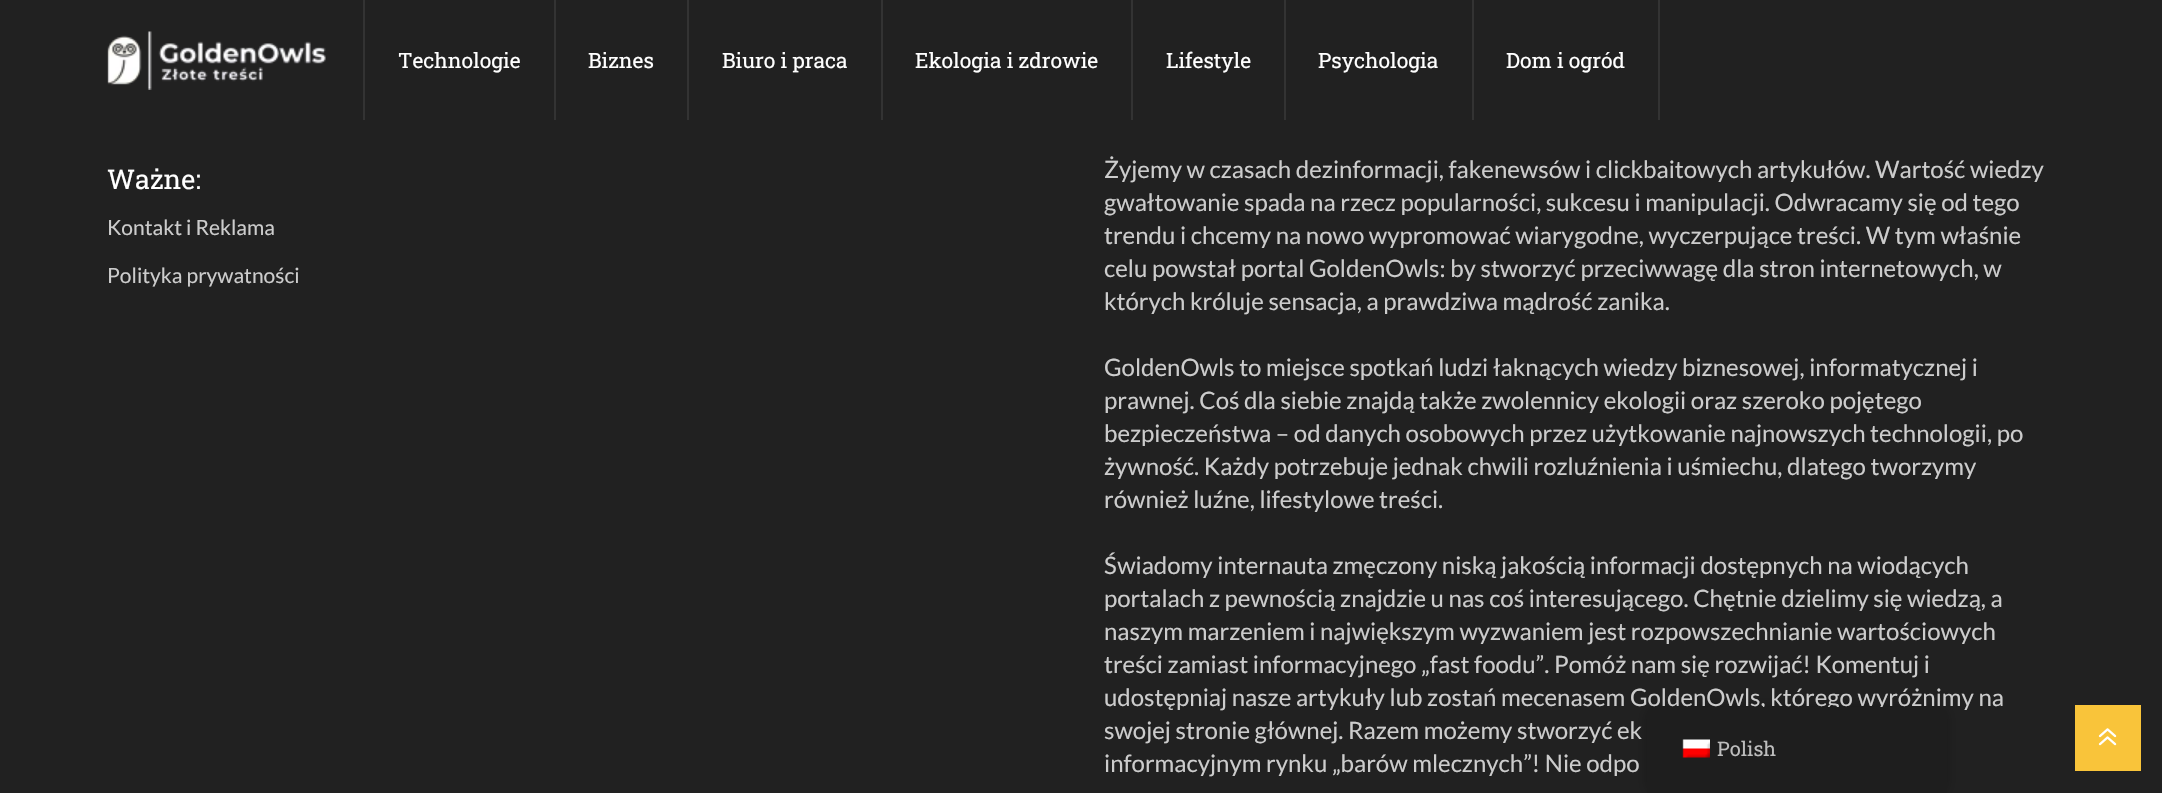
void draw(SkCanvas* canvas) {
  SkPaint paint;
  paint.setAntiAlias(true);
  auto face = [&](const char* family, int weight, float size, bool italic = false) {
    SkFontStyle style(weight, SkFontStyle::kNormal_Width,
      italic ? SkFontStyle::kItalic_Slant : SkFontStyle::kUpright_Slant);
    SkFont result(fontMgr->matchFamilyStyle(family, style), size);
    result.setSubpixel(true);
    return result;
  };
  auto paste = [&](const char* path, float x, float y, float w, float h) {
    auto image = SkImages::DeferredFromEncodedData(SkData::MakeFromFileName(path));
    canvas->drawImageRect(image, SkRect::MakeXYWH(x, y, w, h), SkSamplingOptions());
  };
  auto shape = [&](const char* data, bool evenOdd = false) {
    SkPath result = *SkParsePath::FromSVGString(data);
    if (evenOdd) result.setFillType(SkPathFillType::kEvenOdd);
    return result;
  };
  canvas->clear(0xff212121);
  paste("img/1.png", 107, 31, 219, 59);
  {
    const struct { float x, y, w, h; SkColor color; } items[] = {
      {363, 0, 2, 120, 0xff333333},
      {554, 0, 2, 120, 0xff333333},
      {687, 0, 2, 120, 0xff333333},
      {881, 0, 2, 120, 0xff333333},
      {1131, 0, 2, 120, 0xff333333},
      {1284, 0, 2, 120, 0xff333333},
      {1658, 0, 2, 120, 0xff333333},
      {1472, 0, 2, 120, 0xff333333},
      {2075, 705, 66, 66, 0xfff9c43a},
    };
    for (auto [x, y, w, h, color] : items) {
      paint.setColor(color);
      canvas->drawRect(SkRect::MakeXYWH(x, y, w, h), paint);
    }
  }
  paste("img/2.png", 2098, 728, 19, 18);
  paint.setColor(0x40000000);
  paint.setMaskFilter(SkMaskFilter::MakeBlur(kNormal_SkBlurStyle, 6));
  canvas->drawRoundRect(SkRect::MakeXYWH(1647, 707, 300, 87), 12, 12, paint);
  paint.setMaskFilter(nullptr);
  auto f0 = face("Roboto Slab", 400, 21);
  paint.setColor(0xffffffff);
  {
    const struct { const char* s; float x, y; } items[] = {
      {"Technologie", 398, 68},
      {"Biznes", 588, 68},
      {"Biuro i praca", 722, 68},
      {"Ekologia i zdrowie", 915, 68},
      {"Lifestyle", 1166, 68},
      {"Psychologia", 1318, 68},
      {"Dom i ogród", 1506, 68},
    };
    for (auto [s, x, y] : items) {
      canvas->drawString(s, x, y, f0, paint);
    }
  }
  auto f1 = face("Roboto Slab", 400, 27);
  canvas->drawString("Ważne:", 107, 189, f1, paint);
  auto f2 = face("Lato", 400, 21);
  paint.setColor(0xffcccccc);
  canvas->drawString("Kontakt i Reklama", 107, 235, f2, paint);
  canvas->drawString("Polityka prywatności", 107, 283, f2, paint);
  auto f3 = face("Lato", 400, 24);
  {
    const struct { const char* s; float x, y; } items[] = {
      {"Żyjemy w czasach dezinformacji, fakenewsów i clickbaitowych artykułów. Wartość wiedzy", 1104, 178},
      {"gwałtowanie spada na rzecz popularności, sukcesu i manipulacji. Odwracamy się od tego", 1104, 211},
      {"trendu i chcemy na nowo wypromować wiarygodne, wyczerpujące treści. W tym właśnie", 1104, 244},
      {"celu powstał portal GoldenOwls: by stworzyć przeciwwagę dla stron internetowych, w", 1104, 277},
      {"których króluje sensacja, a prawdziwa mądrość zanika.", 1104, 310},
      {"GoldenOwls to miejsce spotkań ludzi łaknących wiedzy biznesowej, informatycznej i", 1104, 376},
      {"prawnej. Coś dla siebie znajdą także zwolennicy ekologii oraz szeroko pojętego", 1104, 409},
      {"bezpieczeństwa – od danych osobowych przez użytkowanie najnowszych technologii, po", 1104, 442},
      {"żywność. Każdy potrzebuje jednak chwili rozluźnienia i uśmiechu, dlatego tworzymy", 1104, 475},
      {"również luźne, lifestylowe treści.", 1104, 508},
      {"Świadomy internauta zmęczony niską jakością informacji dostępnych na wiodących", 1104, 574},
      {"portalach z pewnością znajdzie u nas coś interesującego. Chętnie dzielimy się wiedzą, a", 1104, 607},
      {"naszym marzeniem i największym wyzwaniem jest rozpowszechnianie wartościowych", 1104, 640},
      {"treści zamiast informacyjnego „fast foodu”. Pomóż nam się rozwijać! Komentuj i", 1104, 673},
      {"udostępniaj nasze artykuły lub zostań mecenasem GoldenOwls, którego wyróżnimy na", 1104, 706},
      {"swojej stronie głównej. Razem możemy stworzyć ek", 1104, 739},
      {"informacyjnym rynku „barów mlecznych”! Nie odpo", 1104, 772},
    };
    for (auto [s, x, y] : items) {
      canvas->drawString(s, x, y, f3, paint);
    }
  }
  paint.setColor(0xff1e1e1e);
  canvas->drawPath(shape("M1659 707H1935C1941.5 707 1947 712.5 1947 719V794H1647V719C1647 712.5 1652.5 707 1659 707Z"), paint);
  paste("img/3.png", 1682, 739, 28, 19);
  auto f4 = face("Roboto Slab", 400, 20);
  paint.setColor(0xffbdbdbd);
  canvas->drawString("Polish", 1717, 756, f4, paint);
}
